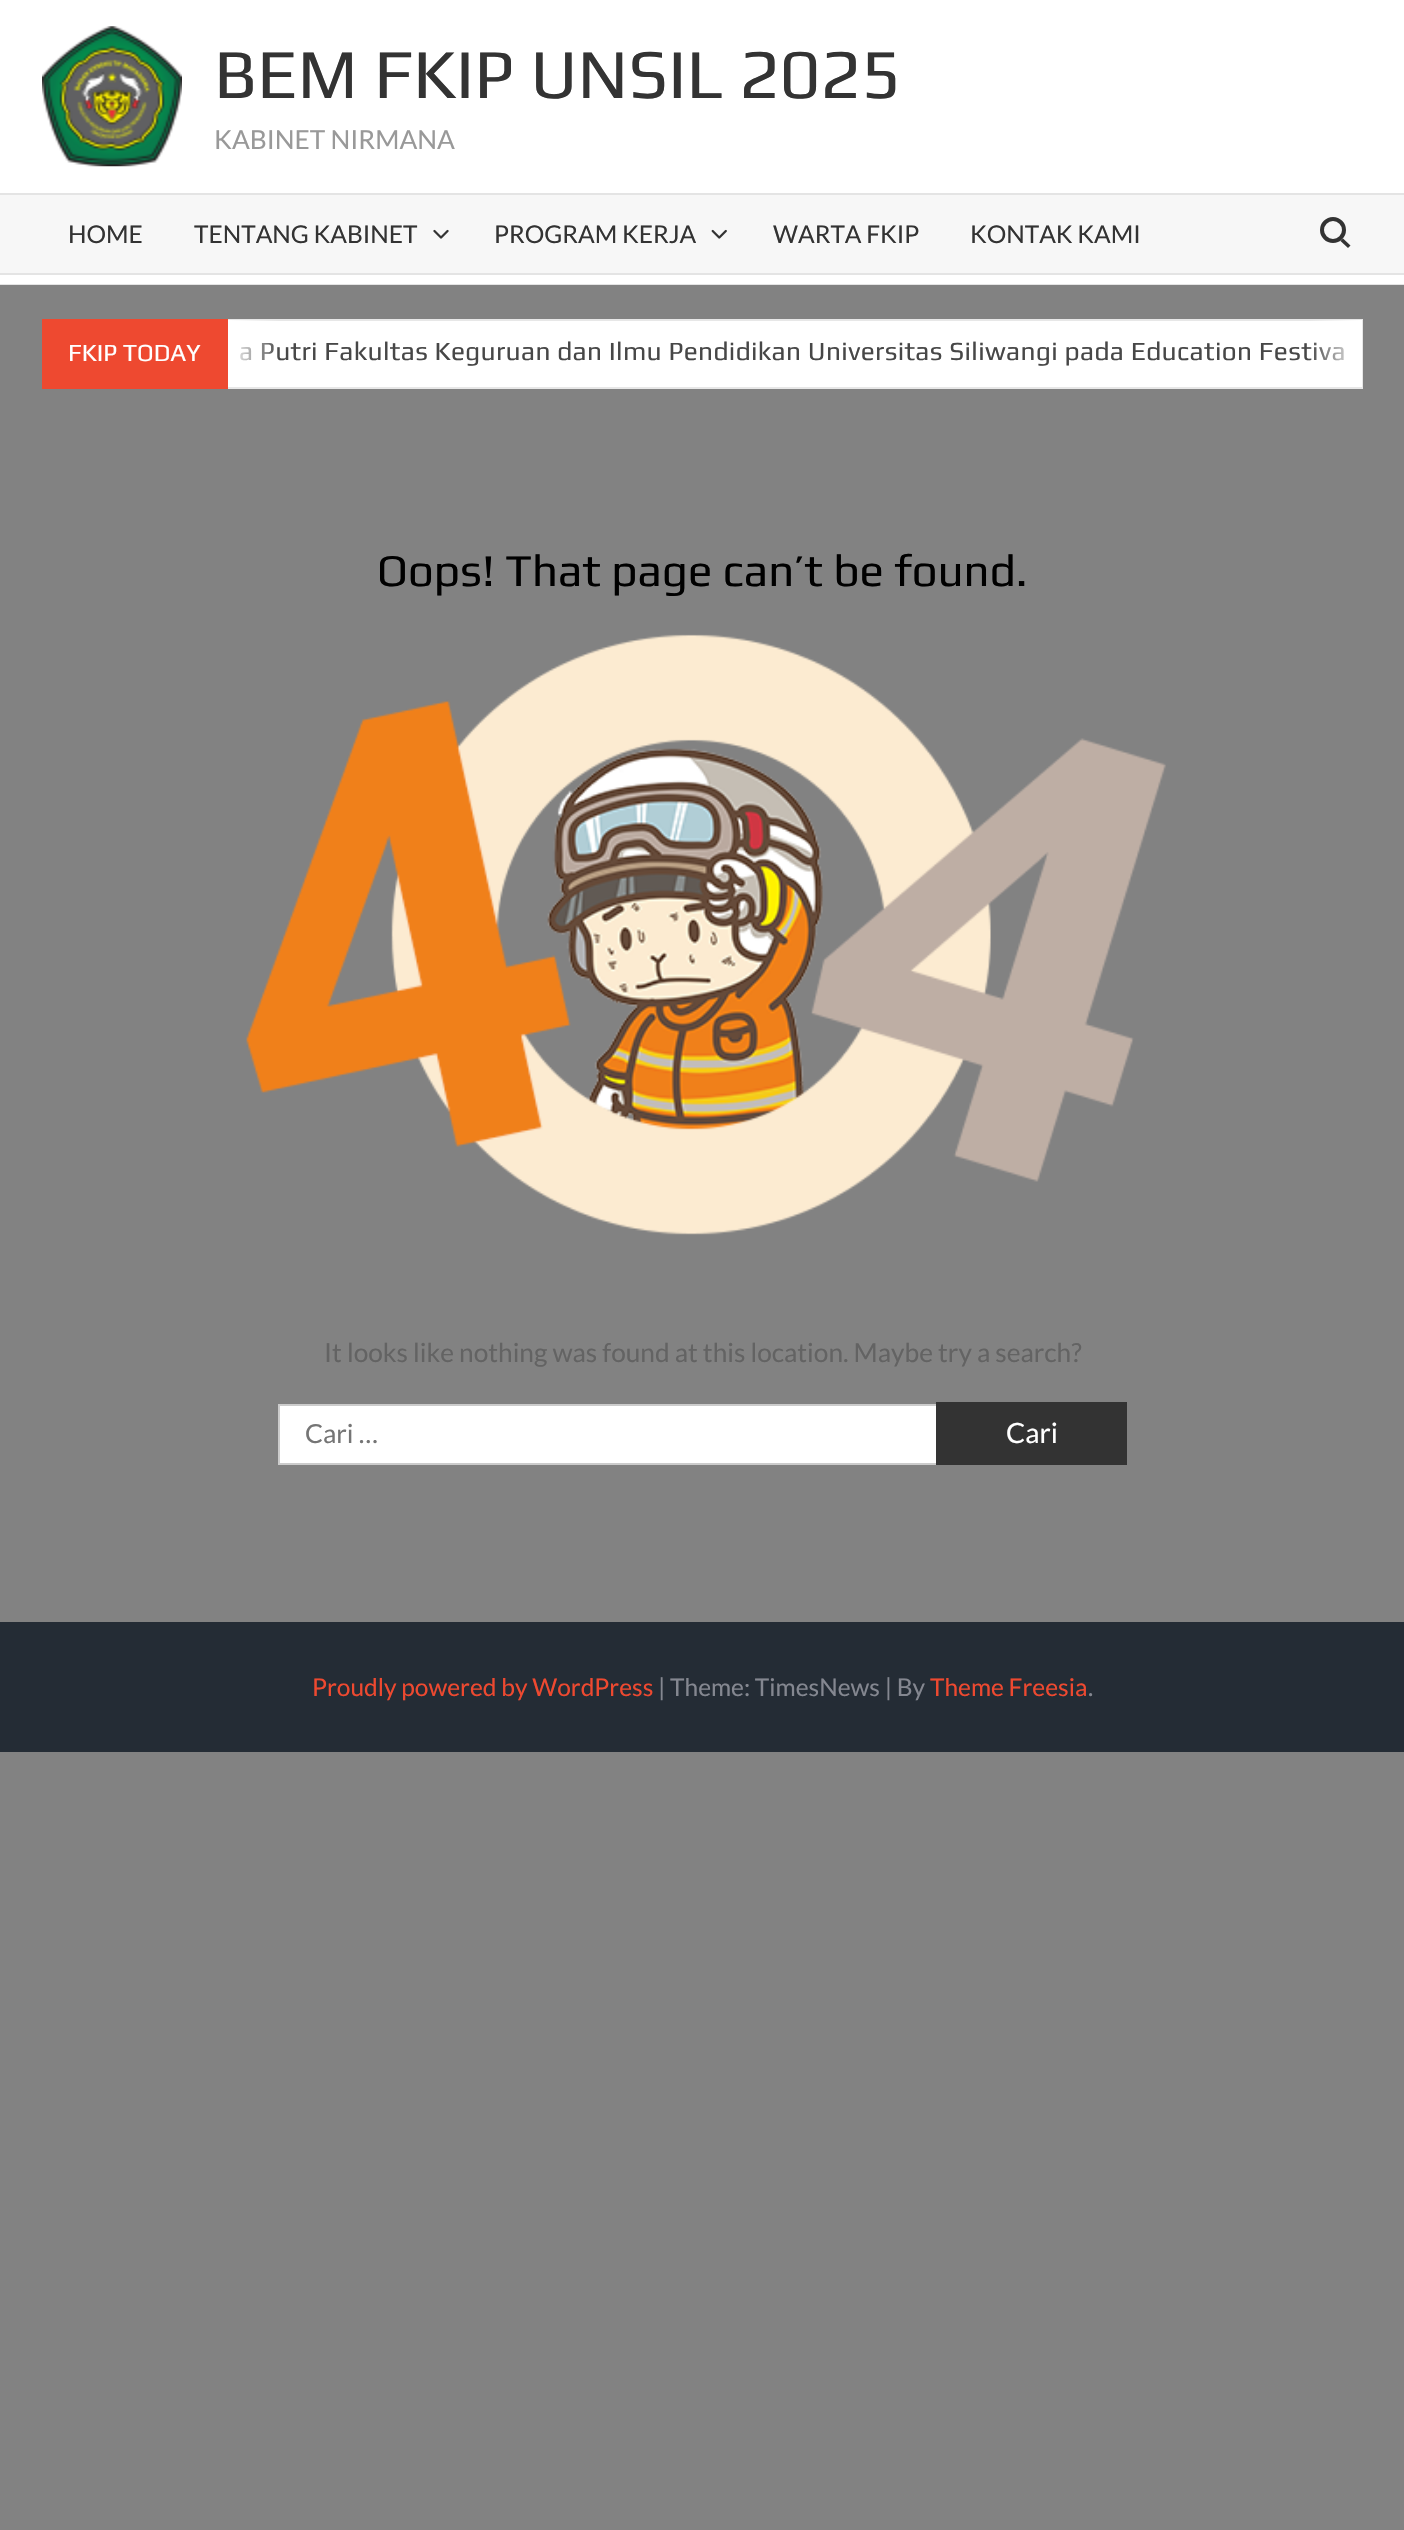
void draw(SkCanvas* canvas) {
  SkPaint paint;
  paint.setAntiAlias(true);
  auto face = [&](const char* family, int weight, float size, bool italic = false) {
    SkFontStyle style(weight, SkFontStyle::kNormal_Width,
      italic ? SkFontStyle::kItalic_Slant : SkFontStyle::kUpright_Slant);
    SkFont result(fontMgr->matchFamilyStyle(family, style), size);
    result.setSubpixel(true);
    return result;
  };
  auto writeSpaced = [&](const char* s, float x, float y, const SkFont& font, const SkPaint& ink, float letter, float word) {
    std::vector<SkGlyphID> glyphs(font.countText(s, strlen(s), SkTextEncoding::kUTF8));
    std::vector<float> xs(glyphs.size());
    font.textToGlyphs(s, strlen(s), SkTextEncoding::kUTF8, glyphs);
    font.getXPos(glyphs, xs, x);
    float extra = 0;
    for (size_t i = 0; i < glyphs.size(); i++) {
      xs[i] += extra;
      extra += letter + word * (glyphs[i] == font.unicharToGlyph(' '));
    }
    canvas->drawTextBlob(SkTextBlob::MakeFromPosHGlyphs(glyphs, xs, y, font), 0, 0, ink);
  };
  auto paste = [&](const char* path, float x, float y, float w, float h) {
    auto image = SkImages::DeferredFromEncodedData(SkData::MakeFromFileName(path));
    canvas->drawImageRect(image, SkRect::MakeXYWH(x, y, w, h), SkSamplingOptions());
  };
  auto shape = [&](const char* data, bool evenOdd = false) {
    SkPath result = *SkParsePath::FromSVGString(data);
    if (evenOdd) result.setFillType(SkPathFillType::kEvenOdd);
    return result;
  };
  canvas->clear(0xff828282);
  paint.setColor(0xffffffff);
  canvas->drawRect(SkRect::MakeXYWH(0, 0, 1404, 193), paint);
  paste("img/1.png", 42, 26, 140, 141);
  {
    const struct { float x, y, w, h; SkColor color; } items[] = {
      {0, 284, 1404, 1, 0xffe4e4e4},
      {0, 195, 1404, 78, 0xfff7f7f7},
      {0, 275, 1404, 9, 0xffffffff},
      {0, 193, 1404, 2, 0xffe4e4e4},
      {0, 273, 1404, 2, 0xffe4e4e4},
    };
    for (auto [x, y, w, h, color] : items) {
      paint.setColor(color);
      canvas->drawRect(SkRect::MakeXYWH(x, y, w, h), paint);
    }
  }
  paste("img/2.png", 433, 229, 16, 10);
  paste("img/3.png", 711, 229, 16, 10);
  paint.setStroke(true);
  paint.setStrokeWidth(4);
  paint.setColor(0xff333333);
  canvas->drawCircle(1333, 230, 11, paint);
  paint.setStroke(false);
  canvas->drawPath(shape("M1343 238.5L1350.5 245.5L1348 248L1340.5 241Z"), paint);
  paint.setColor(0xffffffff);
  canvas->drawRect(SkRect::MakeXYWH(228, 321, 1133, 66), paint);
  paint.setStroke(true);
  paint.setStrokeWidth(2);
  paint.setColor(0xffe7e7e7);
  canvas->drawRect(SkRect::MakeXYWH(43, 320, 1319, 68), paint);
  paint.setStroke(false);
  paint.setColor(0xffee4930);
  canvas->drawRect(SkRect::MakeXYWH(42, 319, 186, 70), paint);
  paste("img/4.png", 246, 634, 920, 601);
  paint.setColor(0xffffffff);
  canvas->drawRect(SkRect::MakeXYWH(279, 1405, 658, 59), paint);
  paint.setStroke(true);
  paint.setColor(0xffcccccc);
  canvas->drawRect(SkRect::MakeXYWH(279, 1405, 658, 59), paint);
  paint.setStroke(false);
  paint.setColor(0xff333333);
  canvas->drawRect(SkRect::MakeXYWH(936, 1402, 191, 63), paint);
  paint.setColor(0xff242c35);
  canvas->drawRect(SkRect::MakeXYWH(0, 1622, 1404, 130), paint);
  auto f0 = face("Play", 400, 70);
  paint.setColor(0xff333333);
  canvas->drawString("BEM FKIP UNSIL 2025", 214, 98, f0, paint);
  auto f1 = face("Lato", 400, 26.25f);
  paint.setColor(0xff999999);
  canvas->drawString("KABINET NIRMANA", 214, 149, f1, paint);
  auto f2 = face("Lato", 400, 24.5f);
  paint.setColor(0xff333333);
  {
    const struct { const char* s; float x, y; } items[] = {
      {"HOME", 68, 243},
      {"TENTANG KABINET", 194, 243},
      {"PROGRAM KERJA", 494, 243},
      {"WARTA FKIP", 773, 243},
      {"KONTAK KAMI", 970, 243},
    };
    for (auto [s, x, y] : items) {
      canvas->drawString(s, x, y, f2, paint);
    }
  }
  auto f3 = face("Play", 400, 24.5f);
  paint.setColor(0xffffffff);
  canvas->drawString("FKIP TODAY", 68, 361, f3, paint);
  auto f4 = face("Play", 400, 26.25f);
  paint.setColor(0xff474747);
  writeSpaced("a Putri Fakultas Keguruan dan Ilmu Pendidikan Universitas Siliwangi pada Education Festiva", 239, 360, f4, paint, 0.35f, 0);
  {
    const SkColor colors[] = {0x00ffffff, 0xffffffff};
    const float stops[] = {0, 1};
    const SkPoint ends[] = {{1309, 354}, {1362, 354}};
    paint.setShader(SkGradientShader::MakeLinear(ends, colors, stops, 2, SkTileMode::kClamp));
    paint.setAlpha(255);
  }
  canvas->drawRect(SkRect::MakeXYWH(1310, 320, 52, 67), paint);
  {
    const SkColor colors[] = {0xffffffff, 0x00ffffff};
    const float stops[] = {0, 1};
    const SkPoint ends[] = {{228, 354}, {280, 354}};
    paint.setShader(SkGradientShader::MakeLinear(ends, colors, stops, 2, SkTileMode::kClamp));
    paint.setAlpha(255);
  }
  canvas->drawRect(SkRect::MakeXYWH(228, 320, 51, 41), paint);
  auto f5 = face("Play", 400, 45.5f);
  paint.setShader(nullptr);
  paint.setColor(0xff000000);
  canvas->drawString("Oops! That page can’t be found.", 377, 586, f5, paint);
  paint.setColor(0xff636363);
  canvas->drawString("It looks like nothing was found at this location. Maybe try a search?", 324, 1362, f1, paint);
  paint.setColor(0xff757575);
  canvas->drawString("Cari …", 305, 1443, f1, paint);
  auto f6 = face("Lato", 400, 28);
  paint.setColor(0xffffffff);
  canvas->drawString("Cari", 1006, 1443, f6, paint);
  paint.setColor(0xffee4930);
  canvas->drawString("Proudly powered by WordPress", 312, 1696, f2, paint);
  paint.setColor(0xff848790);
  canvas->drawString("| Theme: TimesNews | By", 658, 1696, f2, paint);
  paint.setColor(0xffee4930);
  canvas->drawString("Theme Freesia", 930, 1696, f2, paint);
  paint.setColor(0xff848790);
  canvas->drawString(".", 1088, 1696, f2, paint);
}
